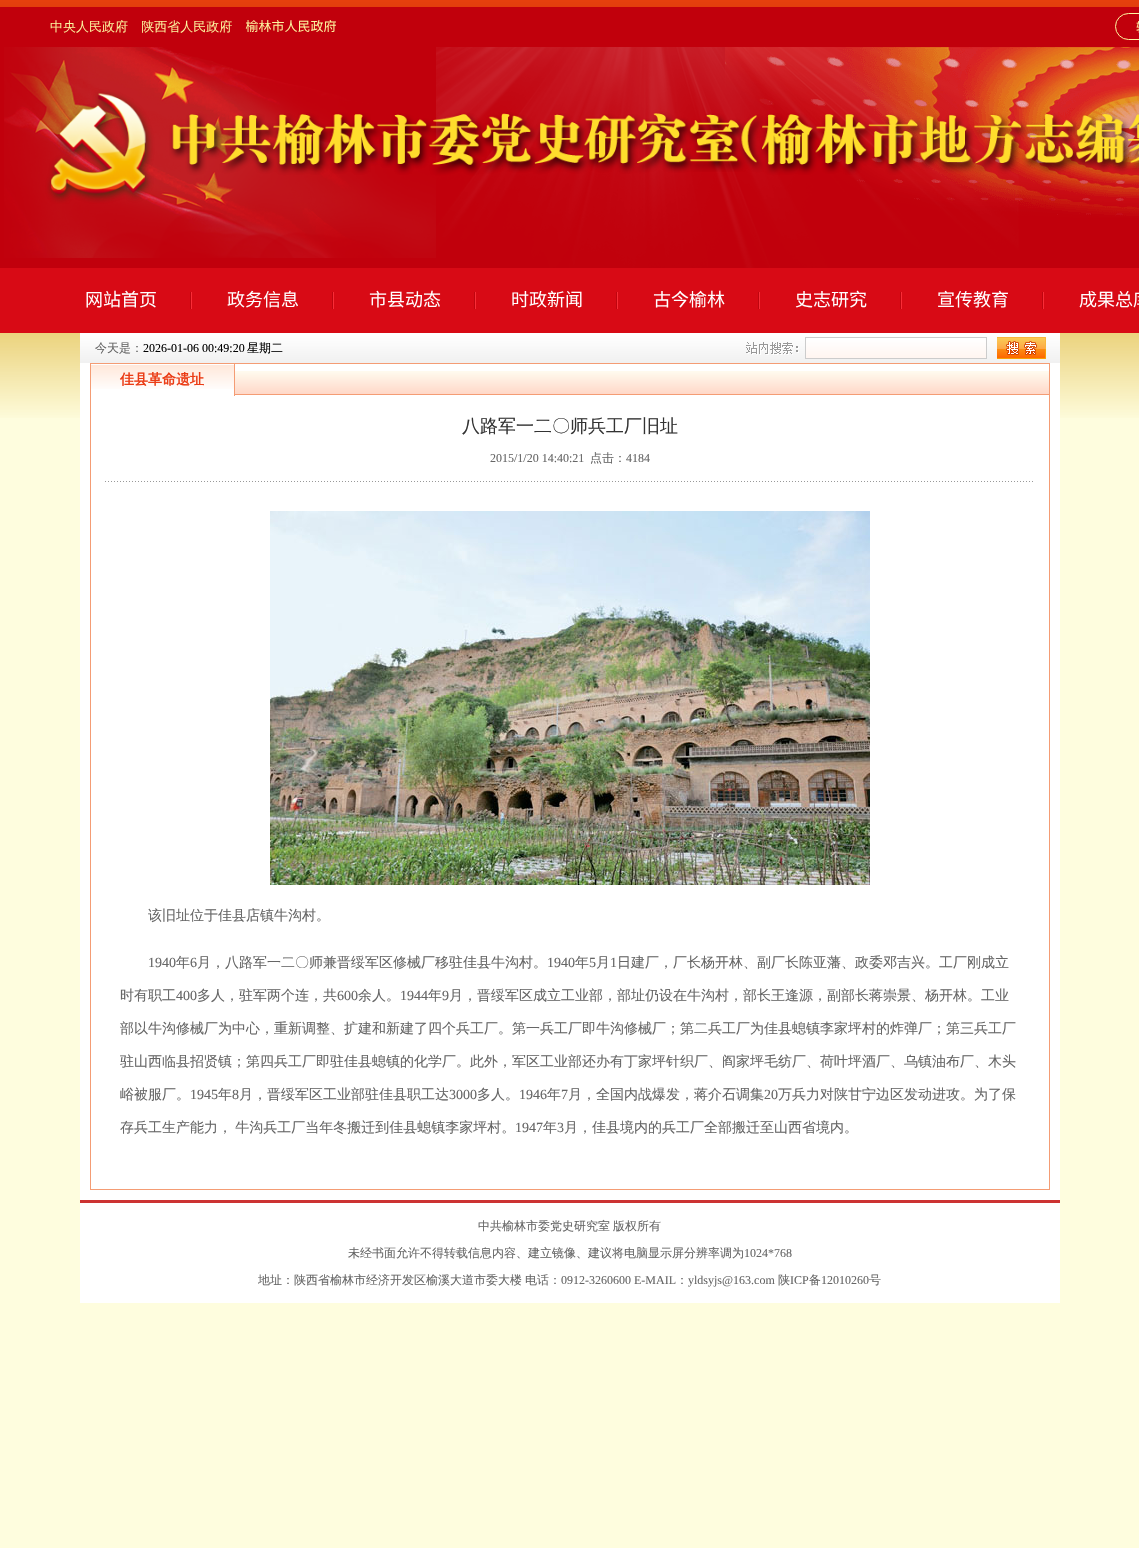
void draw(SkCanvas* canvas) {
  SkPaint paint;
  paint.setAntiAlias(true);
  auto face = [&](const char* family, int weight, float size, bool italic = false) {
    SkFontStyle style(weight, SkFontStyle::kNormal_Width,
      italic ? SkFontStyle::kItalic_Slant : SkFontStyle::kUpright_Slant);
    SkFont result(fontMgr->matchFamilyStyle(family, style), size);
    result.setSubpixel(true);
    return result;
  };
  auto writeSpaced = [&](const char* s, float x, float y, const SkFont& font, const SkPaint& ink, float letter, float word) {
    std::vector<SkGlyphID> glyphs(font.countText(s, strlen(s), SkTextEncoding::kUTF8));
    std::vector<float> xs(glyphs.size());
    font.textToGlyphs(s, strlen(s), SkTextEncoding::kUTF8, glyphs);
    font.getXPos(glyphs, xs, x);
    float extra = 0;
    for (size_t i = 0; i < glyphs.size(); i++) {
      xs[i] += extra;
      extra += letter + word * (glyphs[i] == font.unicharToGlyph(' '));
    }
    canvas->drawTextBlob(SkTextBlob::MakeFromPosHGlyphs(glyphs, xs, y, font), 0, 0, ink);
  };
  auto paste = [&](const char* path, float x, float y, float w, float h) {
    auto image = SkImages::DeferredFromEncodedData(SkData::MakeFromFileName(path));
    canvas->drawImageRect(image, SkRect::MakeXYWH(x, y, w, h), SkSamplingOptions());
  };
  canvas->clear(0xfffefdde);
  paste("img/1.png", 0, 0, 1139, 418);
  paste("img/2.png", 0, 7, 1139, 326);
  paste("img/3.png", 80, 333, 15, 30);
  paste("img/4.png", 95, 333, 317, 30);
  paste("img/5.png", 412, 333, 332, 30);
  paste("img/6.png", 744, 333, 253, 30);
  paste("img/7.png", 746, 337, 241, 22);
  paste("img/8.png", 997, 333, 63, 30);
  paste("img/9.png", 997, 337, 49, 22);
  paint.setColor(0xffffffff);
  canvas->drawRect(SkRect::MakeXYWH(80, 363, 980, 837), paint);
  paint.setStroke(true);
  paint.setStrokeWidth(1);
  paint.setColor(0xfff49c74);
  canvas->drawRect(SkRect::MakeXYWH(90.5f, 363.5f, 959, 826), paint);
  paste("img/10.png", 91, 365, 143, 24);
  paste("img/11.png", 235, 371, 814, 24);
  paint.setStroke(false);
  canvas->drawRect(SkRect::MakeXYWH(234, 364, 1, 32), paint);
  paste("img/12.png", 105, 481, 928, 1);
  paste("img/13.png", 270, 511, 600, 374);
  paint.setColor(0xffcc3333);
  canvas->drawRect(SkRect::MakeXYWH(80, 1200, 980, 3), paint);
  paint.setColor(0xffffffff);
  canvas->drawRect(SkRect::MakeXYWH(80, 1203, 980, 100), paint);
  auto f0 = face("WenQuanYi Zen Hei", 500, 12);
  paint.setColor(0xff666666);
  canvas->drawString("今天是：", 95, 352, f0, paint);
  auto f1 = face("Liberation Serif", 400, 12);
  paint.setColor(0xff000000);
  canvas->drawString("2026-01-06 00:49:20", 143, 352, f1, paint);
  canvas->drawString("星期二", 247, 352, f0, paint);
  auto f2 = face("WenQuanYi Zen Hei", 700, 14);
  paint.setColor(0xffeb3c15);
  canvas->drawString("佳县革命遗址", 120, 384, f2, paint);
  auto f3 = face("WenQuanYi Zen Hei", 500, 18);
  paint.setColor(0xff333333);
  canvas->drawString("八路军一二〇师兵工厂旧址", 462, 432, f3, paint);
  paint.setColor(0xff666666);
  canvas->drawString("2015/1/20 14:40:21", 490, 462, f1, paint);
  canvas->drawString("点击：", 590, 462, f0, paint);
  canvas->drawString("4184", 626, 462, f1, paint);
  auto f4 = face("WenQuanYi Zen Hei", 500, 14);
  canvas->drawString("该旧址位于佳县店镇牛沟村。", 148, 920, f4, paint);
  auto f5 = face("Liberation Serif", 400, 14);
  canvas->drawString("1940", 148, 967, f5, paint);
  canvas->drawString("年", 176, 967, f4, paint);
  canvas->drawString("6", 190, 967, f5, paint);
  canvas->drawString("月，八路军一二〇师兼晋绥军区修械厂移驻佳县牛沟村。", 197, 967, f4, paint);
  canvas->drawString("1940", 547, 967, f5, paint);
  canvas->drawString("年", 575, 967, f4, paint);
  canvas->drawString("5", 589, 967, f5, paint);
  canvas->drawString("月", 596, 967, f4, paint);
  canvas->drawString("1", 610, 967, f5, paint);
  canvas->drawString("日建厂，厂长杨开林、副厂长陈亚藩、政委邓吉兴。工厂刚成立", 617, 967, f4, paint);
  canvas->drawString("时有职工", 120, 1000, f4, paint);
  canvas->drawString("400", 176, 1000, f5, paint);
  canvas->drawString("多人，驻军两个连，共", 197, 1000, f4, paint);
  canvas->drawString("600", 337, 1000, f5, paint);
  canvas->drawString("余人。", 358, 1000, f4, paint);
  canvas->drawString("1944", 400, 1000, f5, paint);
  canvas->drawString("年", 428, 1000, f4, paint);
  canvas->drawString("9", 442, 1000, f5, paint);
  {
    const struct { const char* s; float x, y; } items[] = {
      {"月，晋绥军区成立工业部，部址仍设在牛沟村，部长王逢源，副部长蒋崇景、杨开林。工业", 449, 1000},
      {"部以牛沟修械厂为中心，重新调整、扩建和新建了四个兵工厂。第一兵工厂即牛沟修械厂；第二兵工厂为佳县螅镇李家坪村的炸弹厂；第三兵工厂", 120, 1033},
      {"驻山西临县招贤镇；第四兵工厂即驻佳县螅镇的化学厂。此外，军区工业部还办有丁家坪针织厂、阎家坪毛纺厂、荷叶坪酒厂、乌镇油布厂、木头", 120, 1066},
      {"峪被服厂。", 120, 1099},
    };
    for (auto [s, x, y] : items) {
      canvas->drawString(s, x, y, f4, paint);
    }
  }
  canvas->drawString("1945", 190, 1099, f5, paint);
  canvas->drawString("年", 218, 1099, f4, paint);
  canvas->drawString("8", 232, 1099, f5, paint);
  canvas->drawString("月，晋绥军区工业部驻佳县职工达", 239, 1099, f4, paint);
  canvas->drawString("3000", 449, 1099, f5, paint);
  canvas->drawString("多人。", 477, 1099, f4, paint);
  canvas->drawString("1946", 519, 1099, f5, paint);
  canvas->drawString("年", 547, 1099, f4, paint);
  canvas->drawString("7", 561, 1099, f5, paint);
  canvas->drawString("月，全国内战爆发，蒋介石调集", 568, 1099, f4, paint);
  canvas->drawString("20", 764, 1099, f5, paint);
  canvas->drawString("万兵力对陕甘宁边区发动进攻。为了保", 778, 1099, f4, paint);
  writeSpaced("存兵工生产能力， 牛沟兵工厂当年冬搬迁到佳县螅镇李家坪村。", 120, 1132, f4, paint, 0, -1);
  canvas->drawString("1947", 515, 1132, f5, paint);
  canvas->drawString("年", 543, 1132, f4, paint);
  canvas->drawString("3", 557, 1132, f5, paint);
  canvas->drawString("月，佳县境内的兵工厂全部搬迁至山西省境内。", 564, 1132, f4, paint);
  {
    const struct { const char* s; float x, y; } items[] = {
      {"中共榆林市委党史研究室", 478, 1230},
      {"版权所有", 613, 1230},
      {"未经书面允许不得转载信息内容、建立镜像、建议将电脑显示屏分辨率调为", 348, 1257},
    };
    for (auto [s, x, y] : items) {
      canvas->drawString(s, x, y, f0, paint);
    }
  }
  canvas->drawString("1024*768", 744, 1257, f1, paint);
  canvas->drawString("地址：陕西省榆林市经济开发区榆溪大道市委大楼", 258, 1284, f0, paint);
  canvas->drawString("电话：", 525, 1284, f0, paint);
  canvas->drawString("0912-3260600 E-MAIL", 561, 1284, f1, paint);
  canvas->drawString("：", 676, 1284, f0, paint);
  canvas->drawString("yldsyjs@163.com", 688, 1284, f1, paint);
  canvas->drawString("陕", 778, 1284, f0, paint);
  canvas->drawString("ICP", 790, 1284, f1, paint);
  canvas->drawString("备", 809, 1284, f0, paint);
  canvas->drawString("12010260", 821, 1284, f1, paint);
  canvas->drawString("号", 869, 1284, f0, paint);
}
